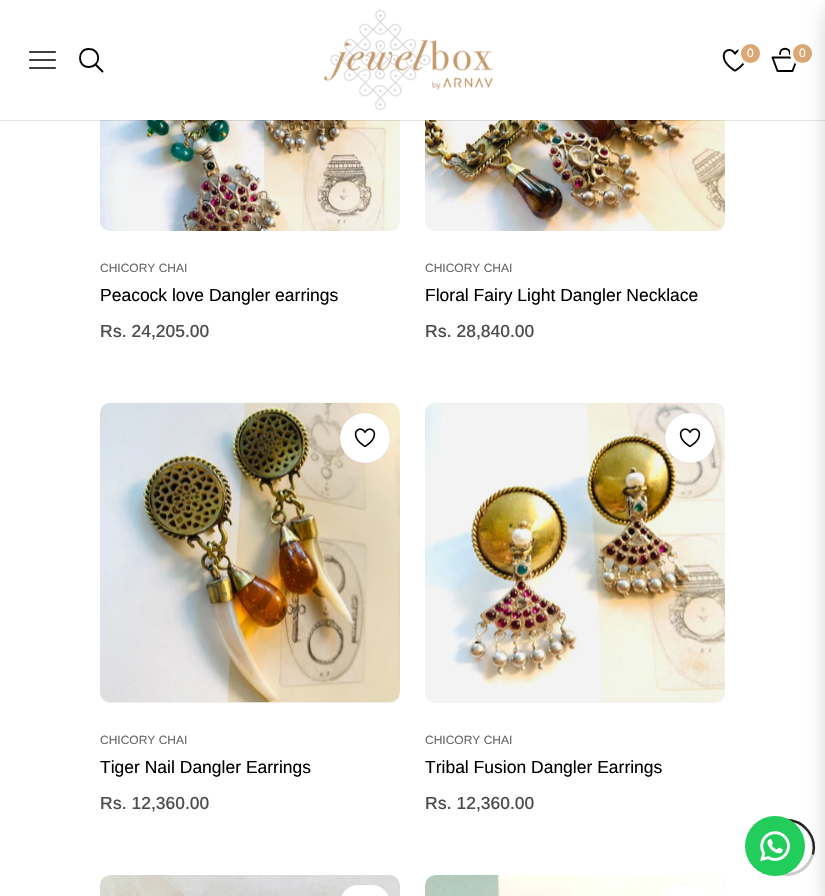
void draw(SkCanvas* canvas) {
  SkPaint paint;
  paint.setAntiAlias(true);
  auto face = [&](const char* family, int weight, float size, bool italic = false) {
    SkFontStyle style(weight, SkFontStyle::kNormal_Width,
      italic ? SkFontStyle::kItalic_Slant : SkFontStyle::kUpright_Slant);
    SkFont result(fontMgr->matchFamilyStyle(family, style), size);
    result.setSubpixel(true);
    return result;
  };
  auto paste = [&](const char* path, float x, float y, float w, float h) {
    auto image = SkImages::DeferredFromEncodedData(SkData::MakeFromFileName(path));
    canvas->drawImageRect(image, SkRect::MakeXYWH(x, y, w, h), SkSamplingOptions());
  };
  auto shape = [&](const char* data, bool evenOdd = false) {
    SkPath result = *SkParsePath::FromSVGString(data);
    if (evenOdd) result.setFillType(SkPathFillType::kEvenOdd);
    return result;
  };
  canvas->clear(0xffffffff);
  paint.setColor(0xfff5f3f3);
  canvas->drawRoundRect(SkRect::MakeXYWH(100, -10, 300, 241), 10, 10, paint);
  paste("img/3.png", 100, 120, 300, 111);
  canvas->drawRoundRect(SkRect::MakeXYWH(425, -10, 300, 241), 10, 10, paint);
  paste("img/4.png", 425, 120, 300, 111);
  paint.setStroke(true);
  paint.setStrokeWidth(1);
  paint.setColor(0x1a000000);
  canvas->drawRect(SkRect::MakeXYWH(-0.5f, -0.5f, 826, 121), paint);
  paint.setStroke(false);
  paint.setColor(0xffffffff);
  canvas->drawRect(SkRect::MakeXYWH(100, 0, 625, 120), paint);
  paint.setStroke(true);
  paint.setStrokeWidth(1.7f);
  paint.setStrokeCap(SkPaint::kSquare_Cap);
  paint.setColor(0xff000000);
  canvas->drawPath(shape("M30 68H55M30 60H55M30 52H55"), paint);
  paint.setStrokeWidth(1.9f);
  paint.setStrokeCap(SkPaint::kButt_Cap);
  canvas->drawPath(shape("M89 49C77 48.5 77 67.5 89 67C101.5 66.5 101 49 89 49Z"), paint);
  paint.setStrokeCap(SkPaint::kRound_Cap);
  canvas->drawPath(shape("M96 65L102.5 71.5"), paint);
  paste("img/1.png", 323, 10, 170, 100);
  paste("img/2.png", 722, 49, 23, 23);
  paint.setStroke(false);
  paint.setColor(0xffdaa775);
  canvas->drawCircle(750.5f, 53.5f, 11, paint);
  paint.setStroke(true);
  paint.setStrokeWidth(3);
  paint.setStrokeCap(SkPaint::kButt_Cap);
  paint.setColor(0xffffffff);
  canvas->drawCircle(750.5f, 53.5f, 11, paint);
  paint.setStrokeWidth(1.9f);
  paint.setStrokeCap(SkPaint::kRound_Cap);
  paint.setStrokeJoin(SkPaint::kRound_Join);
  paint.setColor(0xff000000);
  canvas->drawPath(shape("M772.5 57.5H797.5L792.5 71H777.5ZM790 54C790 47 780 47 780 54"), paint);
  paint.setStroke(false);
  paint.setColor(0xffdaa775);
  canvas->drawCircle(802.5f, 53.5f, 11, paint);
  paint.setStroke(true);
  paint.setStrokeWidth(3);
  paint.setStrokeCap(SkPaint::kButt_Cap);
  paint.setStrokeJoin(SkPaint::kMiter_Join);
  paint.setColor(0xffffffff);
  canvas->drawCircle(802.5f, 53.5f, 11, paint);
  paint.setColor(0xffcccccc);
  canvas->drawCircle(786.5f, 847.5f, 27, paint);
  paint.setStrokeWidth(2.3f);
  paint.setColor(0xff222222);
  canvas->drawPath(shape("M786 820C804.5 820 817.5 837.5 813 854.5"), paint);
  paint.setStroke(false);
  paint.setColor(0x26000000);
  paint.setMaskFilter(SkMaskFilter::MakeBlur(kNormal_SkBlurStyle, 10));
  canvas->drawRect(SkRect::MakeXYWH(825, 10, 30, 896), paint);
  paint.setMaskFilter(nullptr);
  paint.setColor(0xfff5f3f3);
  canvas->drawRoundRect(SkRect::MakeXYWH(100, 403, 300, 300), 10, 10, paint);
  paste("img/5.png", 100, 402, 300, 301);
  paint.setColor(0x1a000000);
  paint.setMaskFilter(SkMaskFilter::MakeBlur(kNormal_SkBlurStyle, 0.5f));
  canvas->drawRoundRect(SkRect::MakeXYWH(340, 413, 50, 50), 25, 25, paint);
  paint.setMaskFilter(nullptr);
  paint.setColor(0xffffffff);
  canvas->drawCircle(365, 438, 25, paint);
  paste("img/6.png", 354, 428, 22, 20);
  paint.setColor(0xfff5f3f3);
  canvas->drawRoundRect(SkRect::MakeXYWH(425, 403, 300, 300), 10, 10, paint);
  paste("img/7.png", 425, 402, 300, 301);
  paint.setColor(0x1a000000);
  paint.setMaskFilter(SkMaskFilter::MakeBlur(kNormal_SkBlurStyle, 0.5f));
  canvas->drawRoundRect(SkRect::MakeXYWH(665, 413, 50, 50), 25, 25, paint);
  paint.setMaskFilter(nullptr);
  paint.setColor(0xffffffff);
  canvas->drawCircle(690, 438, 25, paint);
  paste("img/6.png", 679, 428, 22, 20);
  paint.setColor(0xfff5f3f3);
  canvas->drawRoundRect(SkRect::MakeXYWH(100, 875, 300, 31), 10, 10, paint);
  paste("img/8.png", 100, 875, 300, 21);
  paint.setColor(0x1a000000);
  paint.setMaskFilter(SkMaskFilter::MakeBlur(kNormal_SkBlurStyle, 0.5f));
  canvas->drawRoundRect(SkRect::MakeXYWH(340, 885, 50, 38), 25, 25, paint);
  paint.setMaskFilter(nullptr);
  paint.setColor(0xffffffff);
  canvas->drawRoundRect(SkRect::MakeXYWH(340, 885, 50, 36), 25, 25, paint);
  paint.setColor(0xfff5f3f3);
  canvas->drawRoundRect(SkRect::MakeXYWH(425, 875, 300, 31), 10, 10, paint);
  paste("img/9.png", 425, 875, 300, 21);
  paint.setColor(0x1a000000);
  paint.setMaskFilter(SkMaskFilter::MakeBlur(kNormal_SkBlurStyle, 0.5f));
  canvas->drawRoundRect(SkRect::MakeXYWH(665, 885, 50, 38), 25, 25, paint);
  paint.setMaskFilter(nullptr);
  paint.setColor(0xffffffff);
  canvas->drawRoundRect(SkRect::MakeXYWH(665, 885, 50, 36), 25, 25, paint);
  paint.setColor(0xff22cd5b);
  canvas->drawCircle(775, 846, 30, paint);
  paste("img/10.png", 760, 831, 30, 30);
  auto f0 = face("Arimo", 400, 12);
  paint.setColor(0xffffffff);
  canvas->drawString("0", 747, 57, f0, paint);
  canvas->drawString("0", 799, 57, f0, paint);
  paint.setColor(0xff666666);
  canvas->drawString("CHICORY CHAI", 100, 272, f0, paint);
  auto f1 = face("Arimo", 400, 17.5f);
  paint.setColor(0xff000000);
  canvas->drawString("Peacock love Dangler earrings", 100, 301, f1, paint);
  auto f2 = face("Arimo", 500, 17.5f);
  paint.setColor(0xff4d4d4d);
  canvas->drawString("Rs. 24,205.00", 100, 337, f2, paint);
  paint.setColor(0xff666666);
  canvas->drawString("CHICORY CHAI", 425, 272, f0, paint);
  paint.setColor(0xff000000);
  canvas->drawString("Floral Fairy Light Dangler Necklace", 425, 301, f1, paint);
  paint.setColor(0xff4d4d4d);
  canvas->drawString("Rs. 28,840.00", 425, 337, f2, paint);
  paint.setColor(0xff666666);
  canvas->drawString("CHICORY CHAI", 100, 744, f0, paint);
  paint.setColor(0xff000000);
  canvas->drawString("Tiger Nail Dangler Earrings", 100, 773, f1, paint);
  paint.setColor(0xff4d4d4d);
  canvas->drawString("Rs. 12,360.00", 100, 809, f2, paint);
  paint.setColor(0xff666666);
  canvas->drawString("CHICORY CHAI", 425, 744, f0, paint);
  paint.setColor(0xff000000);
  canvas->drawString("Tribal Fusion Dangler Earrings", 425, 773, f1, paint);
  paint.setColor(0xff4d4d4d);
  canvas->drawString("Rs. 12,360.00", 425, 809, f2, paint);
}
